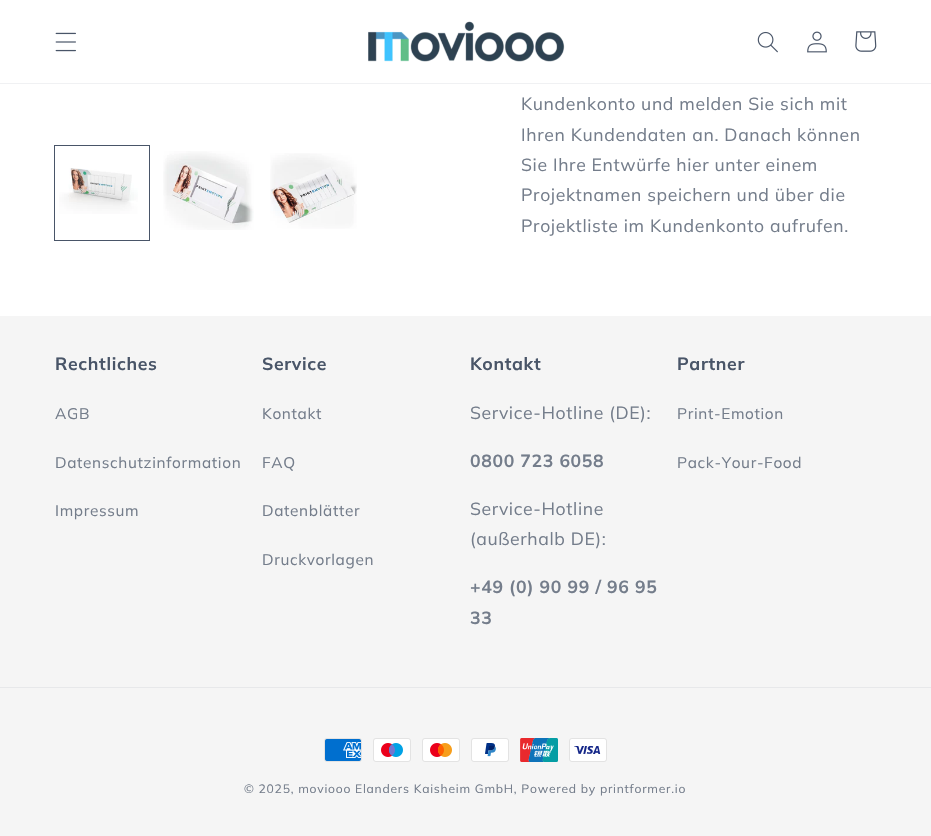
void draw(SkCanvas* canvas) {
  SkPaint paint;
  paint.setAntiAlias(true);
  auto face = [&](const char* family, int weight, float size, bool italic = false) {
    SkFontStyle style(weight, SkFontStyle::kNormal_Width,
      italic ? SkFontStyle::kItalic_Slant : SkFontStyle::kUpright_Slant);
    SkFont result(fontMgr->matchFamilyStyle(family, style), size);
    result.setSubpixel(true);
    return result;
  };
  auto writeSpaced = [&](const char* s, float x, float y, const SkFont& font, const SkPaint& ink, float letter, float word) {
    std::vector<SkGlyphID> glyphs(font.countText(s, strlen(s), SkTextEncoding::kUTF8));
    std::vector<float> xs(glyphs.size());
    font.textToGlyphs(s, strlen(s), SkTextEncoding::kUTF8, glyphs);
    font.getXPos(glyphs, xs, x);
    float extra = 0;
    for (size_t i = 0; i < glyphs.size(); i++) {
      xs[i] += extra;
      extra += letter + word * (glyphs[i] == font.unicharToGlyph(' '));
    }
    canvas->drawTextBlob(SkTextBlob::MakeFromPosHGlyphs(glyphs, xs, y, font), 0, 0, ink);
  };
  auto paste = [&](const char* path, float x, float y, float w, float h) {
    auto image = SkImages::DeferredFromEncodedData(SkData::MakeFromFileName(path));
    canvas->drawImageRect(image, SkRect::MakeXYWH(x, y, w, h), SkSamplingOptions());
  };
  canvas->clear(0xffffffff);
  paint.setColor(0xfff0f1f3);
  canvas->drawRect(SkRect::MakeXYWH(0, 83, 931, 1), paint);
  paste("img/1.png", 55, 32, 21, 20);
  paste("img/2.png", 368, 21, 197, 41);
  paste("img/3.png", 757, 31, 21, 22);
  paste("img/4.png", 807, 31, 20, 22);
  paste("img/5.png", 855, 31, 22, 21);
  paint.setStroke(true);
  paint.setStrokeWidth(1);
  paint.setColor(0xff495568);
  canvas->drawRect(SkRect::MakeXYWH(54.5f, 145.5f, 95, 95), paint);
  paste("img/6.png", 59, 168, 79, 46);
  paste("img/7.png", 163, 151, 91, 79);
  paste("img/8.png", 270, 153, 87, 76);
  paint.setStroke(false);
  paint.setColor(0xfff5f5f5);
  canvas->drawRect(SkRect::MakeXYWH(0, 316, 931, 520), paint);
  paint.setColor(0xffe7e8ea);
  canvas->drawRect(SkRect::MakeXYWH(0, 687, 931, 1), paint);
  paste("img/9.png", 324, 738, 38, 24);
  paste("img/10.png", 373, 738, 38, 24);
  paste("img/11.png", 422, 738, 38, 24);
  paste("img/12.png", 471, 738, 38, 24);
  paste("img/13.png", 520, 738, 38, 24);
  paste("img/14.png", 569, 738, 38, 24);
  auto f0 = face("Muli", 400, 17.6f);
  paint.setColor(0xff747d8b);
  {
    const struct { const char* s; float x, y; } items[] = {
      {"Kundenkonto und melden Sie sich mit", 521, 110},
      {"Ihren Kundendaten an. Danach können", 521, 141},
      {"Sie Ihre Entwürfe hier unter einem", 521, 171},
      {"Projektnamen speichern und über die", 521, 201},
      {"Projektliste im Kundenkonto aufrufen.", 521, 232},
    };
    for (auto [s, x, y] : items) {
      writeSpaced(s, x, y, f0, paint, 0.65f, 0);
    }
  }
  auto f1 = face("Muli", 700, 17.6f);
  paint.setColor(0xff495568);
  writeSpaced("Rechtliches", 55, 370, f1, paint, 0.65f, 0);
  auto f2 = face("Muli", 400, 15.4f);
  paint.setColor(0xff747d8b);
  {
    const struct { const char* s; float x, y; } items[] = {
      {"AGB", 55, 419},
      {"Datenschutzinformation", 55, 468},
      {"Impressum", 55, 516},
    };
    for (auto [s, x, y] : items) {
      writeSpaced(s, x, y, f2, paint, 0.65f, 0);
    }
  }
  paint.setColor(0xff495568);
  writeSpaced("Service", 262, 370, f1, paint, 0.65f, 0);
  paint.setColor(0xff747d8b);
  {
    const struct { const char* s; float x, y; } items[] = {
      {"Kontakt", 262, 419},
      {"FAQ", 262, 468},
      {"Datenblätter", 262, 516},
      {"Druckvorlagen", 262, 565},
    };
    for (auto [s, x, y] : items) {
      writeSpaced(s, x, y, f2, paint, 0.65f, 0);
    }
  }
  paint.setColor(0xff495568);
  writeSpaced("Kontakt", 470, 370, f1, paint, 0.65f, 0);
  paint.setColor(0xff747d8b);
  writeSpaced("Service-Hotline (DE):", 470, 419, f0, paint, 0.65f, 0);
  writeSpaced("0800 723 6058", 470, 467, f1, paint, 0.65f, 0);
  writeSpaced("Service-Hotline", 470, 515, f0, paint, 0.65f, 0);
  writeSpaced("(außerhalb DE):", 470, 545, f0, paint, 0.65f, 0);
  writeSpaced("+49 (0) 90 99 / 96 95", 470, 593, f1, paint, 0.65f, 0);
  writeSpaced("33", 470, 624, f1, paint, 0.65f, 0);
  paint.setColor(0xff495568);
  writeSpaced("Partner", 677, 370, f1, paint, 0.65f, 0);
  paint.setColor(0xff747d8b);
  writeSpaced("Print-Emotion", 677, 419, f2, paint, 0.65f, 0);
  writeSpaced("Pack-Your-Food", 677, 468, f2, paint, 0.65f, 0);
  auto f3 = face("Muli", 400, 12.1f);
  writeSpaced("© 2025, moviooo Elanders Kaisheim GmbH, Powered by printformer.io", 244, 793, f3, paint, 0.77f, 0);
}
